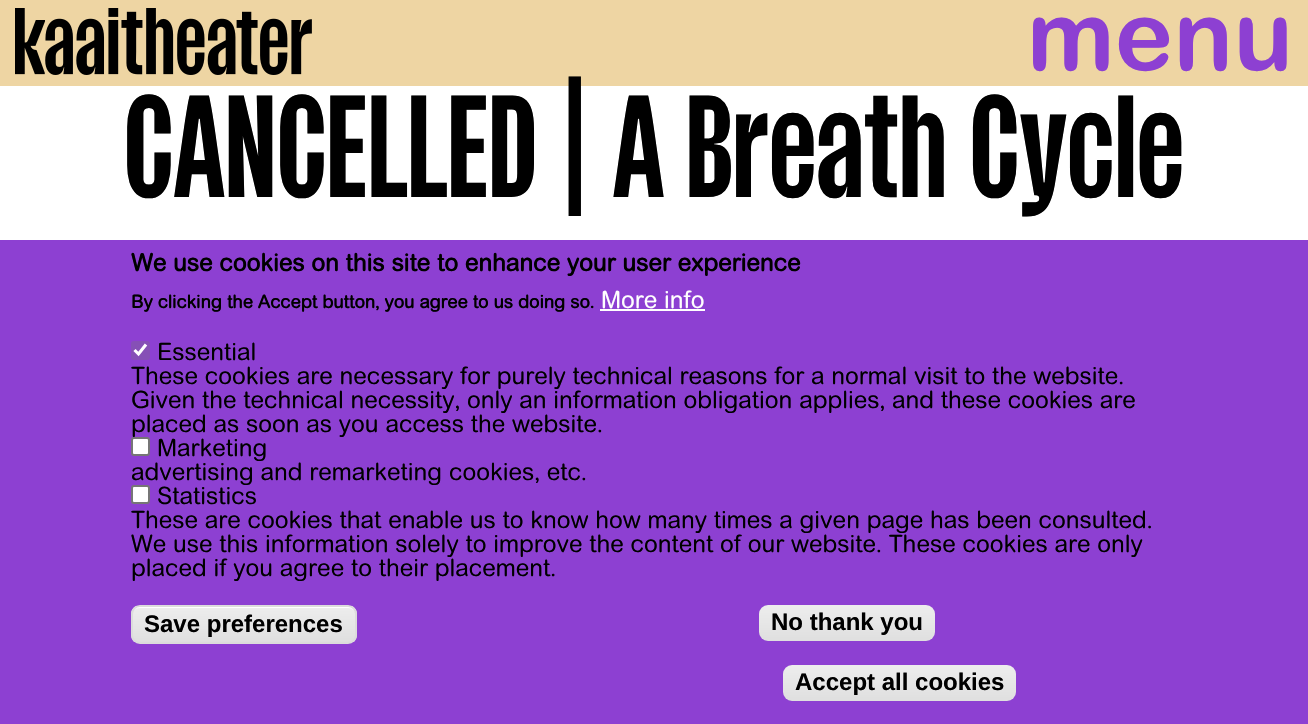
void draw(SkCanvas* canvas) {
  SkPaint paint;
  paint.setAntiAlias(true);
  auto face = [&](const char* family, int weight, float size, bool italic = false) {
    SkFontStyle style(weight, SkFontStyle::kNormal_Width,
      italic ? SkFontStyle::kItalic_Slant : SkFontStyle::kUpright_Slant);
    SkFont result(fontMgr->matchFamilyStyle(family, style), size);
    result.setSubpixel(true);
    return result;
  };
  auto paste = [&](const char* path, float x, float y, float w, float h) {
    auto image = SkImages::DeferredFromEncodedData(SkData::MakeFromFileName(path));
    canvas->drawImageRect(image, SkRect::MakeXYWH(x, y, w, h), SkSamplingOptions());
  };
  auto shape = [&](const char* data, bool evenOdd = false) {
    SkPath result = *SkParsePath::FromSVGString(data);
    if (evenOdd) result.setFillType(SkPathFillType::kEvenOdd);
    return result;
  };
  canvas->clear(0xffffffff);
  paint.setColor(0xffeed5a3);
  canvas->drawRect(SkRect::MakeXYWH(0, 0, 1308, 86), paint);
  paste("img/1.png", 15, 8, 297, 67);
  paint.setColor(0xff8d40d2);
  canvas->drawRect(SkRect::MakeXYWH(0, 240, 1308, 484), paint);
  paint.setColor(0xffffffff);
  canvas->drawRect(SkRect::MakeXYWH(600, 309, 105, 2), paint);
  paint.setColor(0xff8650b6);
  canvas->drawRoundRect(SkRect::MakeXYWH(131, 341, 19, 19), 3, 3, paint);
  paint.setStroke(true);
  paint.setStrokeWidth(3.1f);
  paint.setColor(0xffffffff);
  canvas->drawPath(shape("M134.5 350L138.5 354L146 344.5"), paint);
  canvas->save();
  canvas->clipPath(shape("M140 605H348C353 605 357 609 357 614V635C357 640 353 644 348 644H140C135 644 131 640 131 635V614C131 609 135 605 140 605Z"), true);
  paint.setStroke(false);
  {
    const SkColor colors[] = {0xffededed, 0xffdfdfdf};
    const float stops[] = {0.05f, 1};
    const SkPoint ends[] = {{244, 606}, {244, 642}};
    paint.setShader(SkGradientShader::MakeLinear(ends, colors, stops, 2, SkTileMode::kClamp));
    paint.setAlpha(255);
  }
  canvas->drawRect(SkRect::MakeXYWH(131, 606, 226, 36), paint);
  canvas->restore();
  paint.setShader(nullptr);
  paint.setColor(0xffffffff);
  canvas->drawPath(shape("M140 608H348C352 608 356 611 356 615V614C356 610 352 606 348 606H140C136 606 132 610 132 614V615C132 611 135 608 140 608Z"), paint);
  paint.setStroke(true);
  paint.setStrokeWidth(2);
  paint.setColor(0xffdcdcdc);
  canvas->drawRoundRect(SkRect::MakeXYWH(132, 606, 224, 37), 8, 8, paint);
  paint.setStroke(false);
  {
    const SkColor colors[] = {0xffededed, 0xffdfdfdf};
    const float stops[] = {0.05f, 1};
    const SkPoint ends[] = {{847, 605}, {847, 641}};
    paint.setShader(SkGradientShader::MakeLinear(ends, colors, stops, 2, SkTileMode::kClamp));
    paint.setAlpha(255);
  }
  canvas->drawRoundRect(SkRect::MakeXYWH(759, 605, 176, 36), 9, 9, paint);
  {
    const SkColor colors[] = {0xffededed, 0xffdfdfdf};
    const float stops[] = {0.05f, 1};
    const SkPoint ends[] = {{899, 665}, {899, 701}};
    paint.setShader(SkGradientShader::MakeLinear(ends, colors, stops, 2, SkTileMode::kClamp));
    paint.setAlpha(255);
  }
  canvas->drawRoundRect(SkRect::MakeXYWH(783, 665, 233, 36), 9, 9, paint);
  auto f0 = face("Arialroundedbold", 700, 99);
  paint.setShader(nullptr);
  paint.setColor(0xff8d40d2);
  canvas->drawString("menu", 1027, 70, f0, paint);
  auto f1 = face("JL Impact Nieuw", 400, 135);
  paint.setColor(0xff000000);
  canvas->drawString("CANCELLED | A Breath Cycle", 123, 197, f1, paint);
  auto f2 = face("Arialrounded", 700, 24);
  canvas->drawString("We use cookies on this site to enhance your user experience", 131, 271, f2, paint);
  auto f3 = face("Arialrounded", 700, 18);
  canvas->drawString("By clicking the Accept button, you agree to us doing so.", 131, 308, f3, paint);
  auto f4 = face("Arialrounded", 400, 24);
  paint.setColor(0xffffffff);
  canvas->drawString("More info", 601, 308, f4, paint);
  paint.setColor(0xff000000);
  {
    const struct { const char* s; float x, y; } items[] = {
      {"Essential", 157, 360},
      {"These cookies are necessary for purely technical reasons for a normal visit to the website.", 131, 384},
      {"Given the technical necessity, only an information obligation applies, and these cookies are", 131, 408},
      {"placed as soon as you access the website.", 131, 432},
    };
    for (auto [s, x, y] : items) {
      canvas->drawString(s, x, y, f4, paint);
    }
  }
  paint.setColor(0xffffffff);
  canvas->drawRoundRect(SkRect::MakeXYWH(132, 438, 17, 17), 2, 2, paint);
  paint.setStroke(true);
  paint.setColor(0xff767676);
  canvas->drawRoundRect(SkRect::MakeXYWH(132, 438, 17, 17), 2, 2, paint);
  paint.setStroke(false);
  paint.setColor(0xff000000);
  canvas->drawString("Marketing", 157, 456, f4, paint);
  canvas->drawString("advertising and remarketing cookies, etc.", 131, 480, f4, paint);
  paint.setColor(0xffffffff);
  canvas->drawRoundRect(SkRect::MakeXYWH(132, 486, 17, 17), 2, 2, paint);
  paint.setStroke(true);
  paint.setColor(0xff767676);
  canvas->drawRoundRect(SkRect::MakeXYWH(132, 486, 17, 17), 2, 2, paint);
  paint.setStroke(false);
  paint.setColor(0xff000000);
  {
    const struct { const char* s; float x, y; } items[] = {
      {"Statistics", 157, 504},
      {"These are cookies that enable us to know how many times a given page has been consulted.", 131, 528},
      {"We use this information solely to improve the content of our website. These cookies are only", 131, 552},
      {"placed if you agree to their placement.", 131, 576},
    };
    for (auto [s, x, y] : items) {
      canvas->drawString(s, x, y, f4, paint);
    }
  }
  auto f5 = face("Liberation Sans", 700, 24);
  {
    const struct { const char* s; float x, y; } items[] = {
      {"Save preferences", 144, 632},
      {"No thank you", 771, 630},
      {"Accept all cookies", 795, 690},
    };
    for (auto [s, x, y] : items) {
      canvas->drawString(s, x, y, f5, paint);
    }
  }
}
